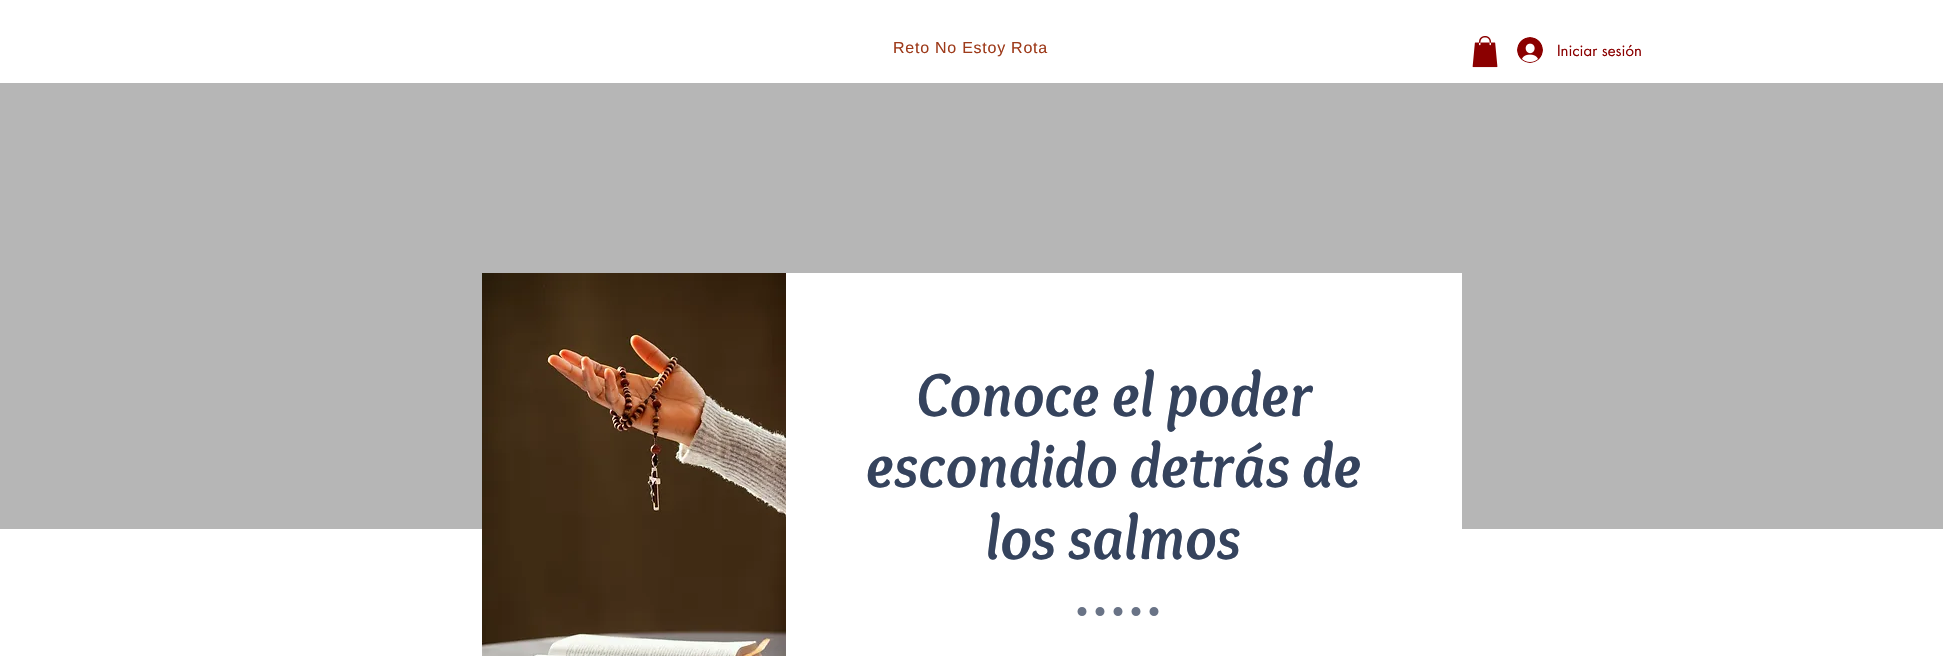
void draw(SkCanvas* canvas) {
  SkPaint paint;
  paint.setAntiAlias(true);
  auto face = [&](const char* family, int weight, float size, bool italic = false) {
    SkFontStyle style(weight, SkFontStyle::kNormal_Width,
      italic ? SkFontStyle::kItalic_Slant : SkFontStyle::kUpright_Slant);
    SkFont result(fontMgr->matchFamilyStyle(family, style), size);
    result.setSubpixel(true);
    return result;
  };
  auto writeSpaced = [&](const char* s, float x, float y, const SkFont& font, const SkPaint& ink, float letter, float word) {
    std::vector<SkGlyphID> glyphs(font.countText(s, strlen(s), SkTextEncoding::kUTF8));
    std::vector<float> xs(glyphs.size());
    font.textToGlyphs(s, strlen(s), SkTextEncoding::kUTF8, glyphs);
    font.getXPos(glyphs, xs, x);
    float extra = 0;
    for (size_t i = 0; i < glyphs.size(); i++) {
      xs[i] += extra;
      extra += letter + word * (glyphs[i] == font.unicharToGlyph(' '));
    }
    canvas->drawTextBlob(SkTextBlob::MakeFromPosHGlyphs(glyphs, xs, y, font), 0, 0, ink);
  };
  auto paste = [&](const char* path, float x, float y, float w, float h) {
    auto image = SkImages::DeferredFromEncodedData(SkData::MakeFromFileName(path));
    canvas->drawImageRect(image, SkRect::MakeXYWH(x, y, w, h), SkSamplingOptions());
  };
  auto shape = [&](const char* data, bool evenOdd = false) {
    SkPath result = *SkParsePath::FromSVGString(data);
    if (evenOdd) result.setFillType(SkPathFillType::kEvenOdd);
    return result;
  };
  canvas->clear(0xffffffff);
  paste("img/1.png", 1472, 36, 26, 32);
  paste("img/2.png", 1517, 37, 26, 26);
  paint.setColor(0xffb6b6b6);
  canvas->drawRect(SkRect::MakeXYWH(0, 83, 1943, 446), paint);
  paint.setColor(0xffffffff);
  canvas->drawRect(SkRect::MakeXYWH(786, 273, 676, 256), paint);
  paste("img/3.png", 482, 273, 304, 383);
  paint.setStroke(true);
  paint.setStrokeWidth(9);
  paint.setStrokeCap(SkPaint::kRound_Cap);
  paint.setColor(0xff697386);
  paint.setPathEffect(SkDashPathEffect::Make({{0, 18}}, 0));
  canvas->drawPath(shape("M1082 611.5H1167"), paint);
  paint.setPathEffect(nullptr);
  auto f0 = face("Liberation Sans", 400, 16);
  paint.setStroke(false);
  paint.setColor(0xff9e3b1b);
  writeSpaced("Reto No Estoy Rota", 893, 53, f0, paint, 0.75f, 0);
  auto f1 = face("futura", 400, 15);
  paint.setColor(0xff8b0000);
  canvas->drawString("Iniciar sesión", 1557, 56, f1, paint);
  auto f2 = face("Overlock", 700, 63, true);
  paint.setColor(0xff35435d);
  {
    const struct { const char* s; float x, y; } items[] = {
      {"Conoce el poder", 916, 416},
      {"escondido detrás de", 866, 487},
      {"los salmos", 986, 559},
    };
    for (auto [s, x, y] : items) {
      canvas->drawString(s, x, y, f2, paint);
    }
  }
}
